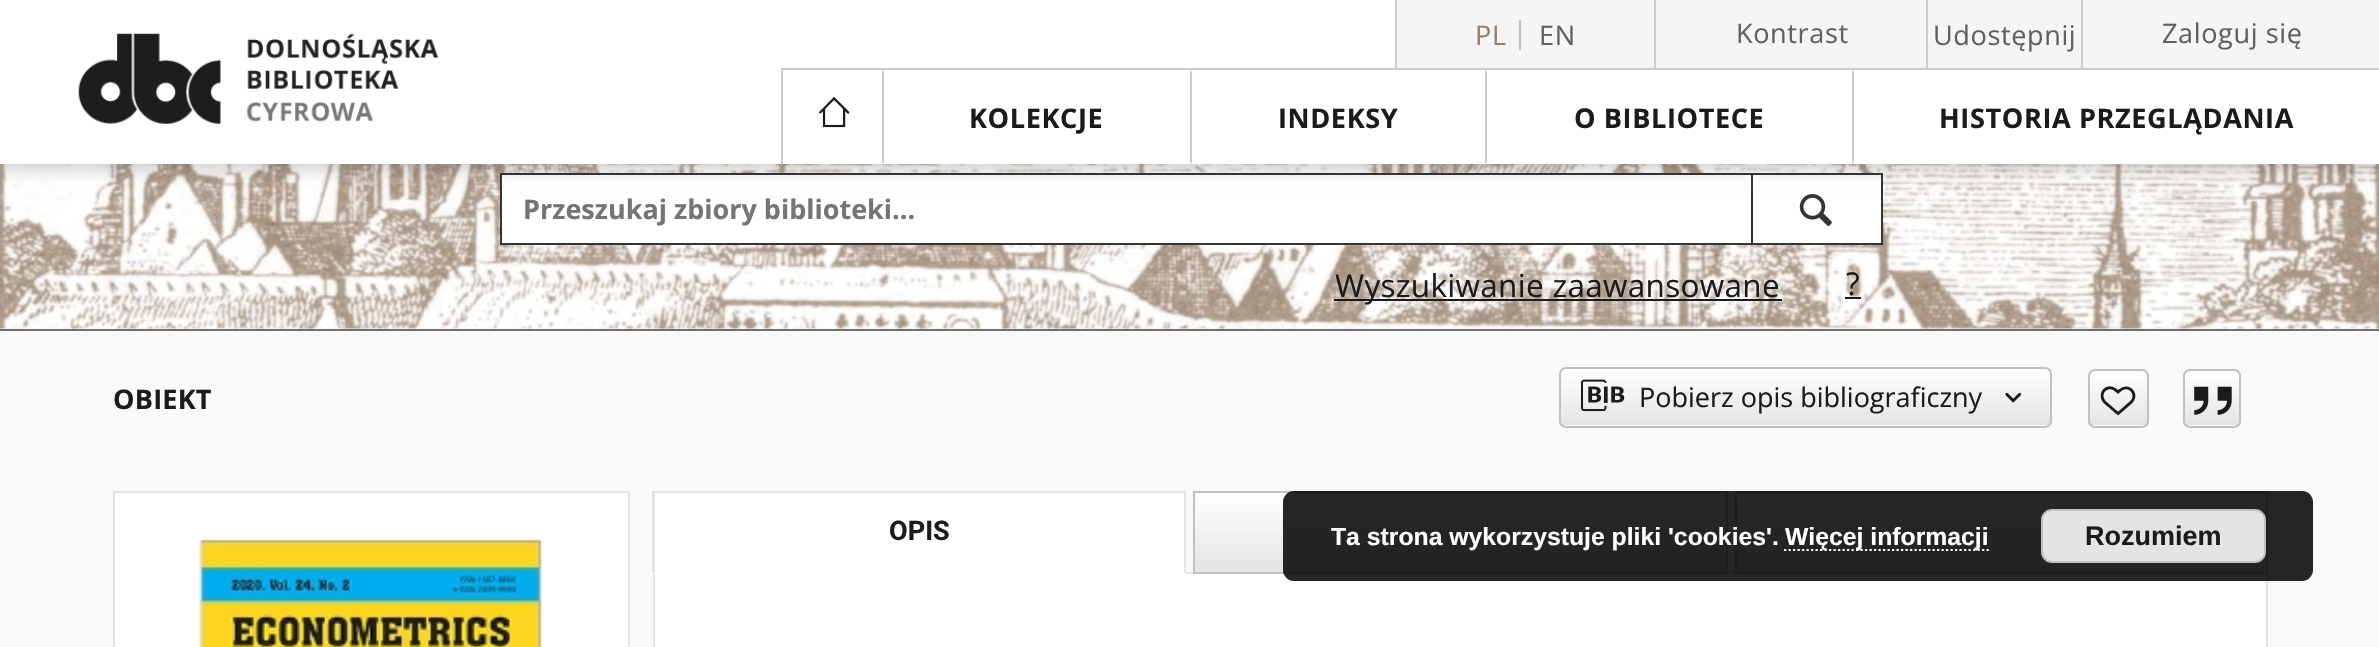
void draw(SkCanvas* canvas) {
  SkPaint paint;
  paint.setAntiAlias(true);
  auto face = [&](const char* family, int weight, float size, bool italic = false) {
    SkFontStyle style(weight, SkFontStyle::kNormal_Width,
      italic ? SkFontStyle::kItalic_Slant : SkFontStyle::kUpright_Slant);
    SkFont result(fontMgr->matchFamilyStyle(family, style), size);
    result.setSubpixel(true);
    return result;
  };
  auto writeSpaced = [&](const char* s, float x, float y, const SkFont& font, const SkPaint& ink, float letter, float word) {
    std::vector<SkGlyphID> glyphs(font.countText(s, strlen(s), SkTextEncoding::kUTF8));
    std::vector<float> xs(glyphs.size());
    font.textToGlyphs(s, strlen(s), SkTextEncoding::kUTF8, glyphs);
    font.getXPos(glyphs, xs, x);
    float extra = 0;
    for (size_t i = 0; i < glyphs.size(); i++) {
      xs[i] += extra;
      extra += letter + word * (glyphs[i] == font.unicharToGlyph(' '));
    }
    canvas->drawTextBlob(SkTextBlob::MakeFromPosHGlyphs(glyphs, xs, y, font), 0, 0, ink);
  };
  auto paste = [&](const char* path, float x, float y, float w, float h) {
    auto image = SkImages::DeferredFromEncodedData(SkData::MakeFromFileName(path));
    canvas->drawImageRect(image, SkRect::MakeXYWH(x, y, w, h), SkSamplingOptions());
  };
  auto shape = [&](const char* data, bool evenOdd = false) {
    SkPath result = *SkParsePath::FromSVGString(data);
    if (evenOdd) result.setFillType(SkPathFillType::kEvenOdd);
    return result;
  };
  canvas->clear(0xfff9f9f9);
  paint.setColor(0xfff5f5f5);
  canvas->drawRect(SkRect::MakeXYWH(0, 328, 2379, 1), paint);
  paste("img/3.png", 0, 164, 2379, 165);
  paint.setColor(0xffffffff);
  canvas->drawRect(SkRect::MakeXYWH(501, 174, 1251, 70), paint);
  paint.setStroke(true);
  paint.setStrokeWidth(2);
  paint.setColor(0xff353434);
  canvas->drawRect(SkRect::MakeXYWH(501, 174, 1251, 70), paint);
  paint.setStroke(false);
  {
    const struct { float x, y, w, h; SkColor color; } items[] = {
      {1753, 175, 128, 68, 0xffffffff},
      {1753, 173, 130, 2, 0xff353434},
      {1881, 173, 2, 72, 0xff353434},
    };
    for (auto [x, y, w, h, color] : items) {
      paint.setColor(color);
      canvas->drawRect(SkRect::MakeXYWH(x, y, w, h), paint);
    }
  }
  paste("img/4.png", 1799, 194, 33, 32);
  paint.setColor(0x14000000);
  paint.setMaskFilter(SkMaskFilter::MakeBlur(kNormal_SkBlurStyle, 11));
  canvas->drawRect(SkRect::MakeXYWH(0, 2, 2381, 165), paint);
  paint.setMaskFilter(nullptr);
  paint.setColor(0x0f000000);
  paint.setMaskFilter(SkMaskFilter::MakeBlur(kNormal_SkBlurStyle, 5.5f));
  canvas->drawRect(SkRect::MakeXYWH(0, 9, 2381, 164), paint);
  paint.setMaskFilter(nullptr);
  paint.setMaskFilter(SkMaskFilter::MakeBlur(kNormal_SkBlurStyle, 4.5f));
  canvas->drawRect(SkRect::MakeXYWH(2, 7, 2376, 160), paint);
  paint.setMaskFilter(nullptr);
  {
    const struct { float x, y, w, h; SkColor color; } items[] = {
      {0, 0, 2379, 164, 0xffffffff},
      {1397, 0, 982, 68, 0xfff5f5f5},
      {1395, 0, 2, 68, 0xffcccccc},
      {1519, 20, 2, 30, 0xffc1c1c1},
      {1654, 0, 2, 68, 0xffcccccc},
      {1926, 0, 2, 68, 0xffcccccc},
      {2081, 0, 2, 68, 0xffcccccc},
    };
    for (auto [x, y, w, h, color] : items) {
      paint.setColor(color);
      canvas->drawRect(SkRect::MakeXYWH(x, y, w, h), paint);
    }
  }
  paste("img/1.png", 78, 33, 361, 91);
  canvas->drawRect(SkRect::MakeXYWH(781, 68, 1598, 2), paint);
  canvas->drawPath(shape("M781 166V68L783 70V164Z"), paint);
  paste("img/2.png", 819, 96, 31, 32);
  canvas->drawPath(shape("M882 164V70L884 72V162Z"), paint);
  canvas->drawPath(shape("M1190 164V70L1192 72V162Z"), paint);
  canvas->drawPath(shape("M1485 164V70L1487 72V162Z"), paint);
  canvas->drawPath(shape("M1852 164V70L1854 72V162Z"), paint);
  {
    const struct { float x, y, w, h; SkColor color; } items[] = {
      {0, 329, 2379, 2, 0xff707070},
      {1753, 243, 130, 2, 0xff353434},
      {1334, 299, 448, 2, 0xff1a1b1c},
      {1845, 297, 16, 2, 0xff1a1b1c},
    };
    for (auto [x, y, w, h, color] : items) {
      paint.setColor(color);
      canvas->drawRect(SkRect::MakeXYWH(x, y, w, h), paint);
    }
  }
  canvas->save();
  canvas->clipPath(shape("M1566 367H2045C2049 367 2052 370 2052 374V421C2052 425 2049 428 2045 428H1566C1562 428 1559 425 1559 421V374C1559 370 1562 367 1566 367Z"), true);
  {
    const SkColor colors[] = {0xffffffff, 0xffe4e4e4};
    const float stops[] = {0, 1};
    const SkPoint ends[] = {{1806, 369}, {1806, 425}};
    paint.setShader(SkGradientShader::MakeLinear(ends, colors, stops, 2, SkTileMode::kClamp));
    paint.setAlpha(255);
  }
  canvas->drawRect(SkRect::MakeXYWH(1559, 369, 493, 56), paint);
  {
    const SkColor colors[] = {0xffffffff, 0xffe4e4e4};
    const float stops[] = {0, 1};
    const SkPoint ends[] = {{1806, 425}, {1806, 482}};
    paint.setShader(SkGradientShader::MakeLinear(ends, colors, stops, 2, SkTileMode::kClamp));
    paint.setAlpha(255);
  }
  canvas->drawRect(SkRect::MakeXYWH(1559, 425, 493, 3), paint);
  canvas->restore();
  paint.setStroke(true);
  paint.setShader(nullptr);
  paint.setColor(0xffc1c1c1);
  canvas->drawRoundRect(SkRect::MakeXYWH(1560, 368, 491, 59), 6, 6, paint);
  paste("img/5.png", 1581, 379, 44, 33);
  paste("img/6.png", 2005, 392, 17, 11);
  canvas->save();
  canvas->clipPath(shape("M2095 369H2142C2146 369 2149 372 2149 376V421C2149 425 2146 428 2142 428H2095C2091 428 2088 425 2088 421V376C2088 372 2091 369 2095 369Z"), true);
  paint.setStroke(false);
  {
    const SkColor colors[] = {0xffffffff, 0xffe4e4e4};
    const float stops[] = {0, 1};
    const SkPoint ends[] = {{2118, 371}, {2118, 425}};
    paint.setShader(SkGradientShader::MakeLinear(ends, colors, stops, 2, SkTileMode::kClamp));
    paint.setAlpha(255);
  }
  canvas->drawRect(SkRect::MakeXYWH(2088, 371, 61, 54), paint);
  {
    const SkColor colors[] = {0xffffffff, 0xffe4e4e4};
    const float stops[] = {0, 1};
    const SkPoint ends[] = {{2118, 425}, {2118, 479}};
    paint.setShader(SkGradientShader::MakeLinear(ends, colors, stops, 2, SkTileMode::kClamp));
    paint.setAlpha(255);
  }
  canvas->drawRect(SkRect::MakeXYWH(2088, 425, 61, 3), paint);
  canvas->restore();
  paint.setStroke(true);
  paint.setShader(nullptr);
  paint.setColor(0xffc1c1c1);
  canvas->drawRoundRect(SkRect::MakeXYWH(2089, 370, 59, 57), 6, 6, paint);
  paste("img/7.png", 2100, 386, 36, 30);
  canvas->save();
  canvas->clipPath(shape("M2190 369H2234C2238 369 2241 372 2241 376V421C2241 425 2238 428 2234 428H2190C2186 428 2183 425 2183 421V376C2183 372 2186 369 2190 369Z"), true);
  paint.setStroke(false);
  {
    const SkColor colors[] = {0xffffffff, 0xffe4e4e4};
    const float stops[] = {0, 1};
    const SkPoint ends[] = {{2212, 371}, {2212, 425}};
    paint.setShader(SkGradientShader::MakeLinear(ends, colors, stops, 2, SkTileMode::kClamp));
    paint.setAlpha(255);
  }
  canvas->drawRect(SkRect::MakeXYWH(2183, 371, 58, 54), paint);
  {
    const SkColor colors[] = {0xffffffff, 0xffe4e4e4};
    const float stops[] = {0, 1};
    const SkPoint ends[] = {{2212, 425}, {2212, 479}};
    paint.setShader(SkGradientShader::MakeLinear(ends, colors, stops, 2, SkTileMode::kClamp));
    paint.setAlpha(255);
  }
  canvas->drawRect(SkRect::MakeXYWH(2183, 425, 58, 3), paint);
  canvas->restore();
  paint.setStroke(true);
  paint.setShader(nullptr);
  paint.setColor(0xffc1c1c1);
  canvas->drawRoundRect(SkRect::MakeXYWH(2184, 370, 56, 57), 6, 6, paint);
  paste("img/8.png", 2194, 386, 38, 29);
  paint.setStroke(false);
  paint.setColor(0xffffffff);
  canvas->drawRect(SkRect::MakeXYWH(114, 492, 515, 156), paint);
  paint.setStroke(true);
  paint.setColor(0xffe4e4e4);
  canvas->drawRect(SkRect::MakeXYWH(114, 492, 515, 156), paint);
  paste("img/9.png", 197, 537, 346, 110);
  paint.setStroke(false);
  {
    const struct { float x, y, w, h; SkColor color; } items[] = {
      {1186, 572, 549, 2, 0xffe4e4e4},
      {653, 493, 533, 81, 0xffffffff},
      {653, 491, 533, 2, 0xffe4e4e4},
    };
    for (auto [x, y, w, h, color] : items) {
      paint.setColor(color);
      canvas->drawRect(SkRect::MakeXYWH(x, y, w, h), paint);
    }
  }
  canvas->drawPath(shape("M1186 490V574L1184 572V493Z"), paint);
  canvas->drawPath(shape("M652 574V490L655 493V572Z"), paint);
  {
    const SkColor colors[] = {0xffffffff, 0xffe4e4e4};
    const float stops[] = {0, 1};
    const SkPoint ends[] = {{1460, 493}, {1460, 572}};
    paint.setShader(SkGradientShader::MakeLinear(ends, colors, stops, 2, SkTileMode::kClamp));
    paint.setAlpha(255);
  }
  canvas->drawRect(SkRect::MakeXYWH(1195, 493, 531, 79), paint);
  paint.setStroke(true);
  paint.setShader(nullptr);
  paint.setColor(0xffc1c1c1);
  canvas->drawRect(SkRect::MakeXYWH(1194, 492, 533, 81), paint);
  paint.setStroke(false);
  {
    const SkColor colors[] = {0xffffffff, 0xffe4e4e4};
    const float stops[] = {0, 1};
    const SkPoint ends[] = {{2001, 493}, {2001, 572}};
    paint.setShader(SkGradientShader::MakeLinear(ends, colors, stops, 2, SkTileMode::kClamp));
    paint.setAlpha(255);
  }
  canvas->drawRect(SkRect::MakeXYWH(1737, 493, 529, 79), paint);
  paint.setStroke(true);
  paint.setShader(nullptr);
  paint.setColor(0xffc1c1c1);
  canvas->drawRect(SkRect::MakeXYWH(1736, 492, 531, 81), paint);
  paint.setStroke(false);
  {
    const struct { float x, y, w, h; SkColor color; } items[] = {
      {655, 574, 1611, 73, 0xffffffff},
      {2266, 574, 2, 73, 0xffe4e4e4},
      {653, 574, 2, 73, 0xffe4e4e4},
    };
    for (auto [x, y, w, h, color] : items) {
      paint.setColor(color);
      canvas->drawRect(SkRect::MakeXYWH(x, y, w, h), paint);
    }
  }
  paint.setColor(0xd9000000);
  canvas->drawRoundRect(SkRect::MakeXYWH(1283, 491, 1030, 90), 11, 11, paint);
  paint.setStroke(true);
  paint.setStrokeWidth(2.2f);
  paint.setColor(0xffffffff);
  paint.setPathEffect(SkDashPathEffect::Make({{2.25f, 2.25f}}, 0));
  canvas->drawPath(shape("M1784 550H1989"), paint);
  paint.setPathEffect(nullptr);
  paint.setStroke(false);
  paint.setColor(0xffe4e4e4);
  canvas->drawRoundRect(SkRect::MakeXYWH(2042, 510, 223, 52), 10, 10, paint);
  paint.setStroke(true);
  paint.setStrokeWidth(2);
  paint.setColor(0xffc1c1c1);
  canvas->drawRoundRect(SkRect::MakeXYWH(2042, 510, 223, 52), 10, 10, paint);
  auto f0 = face("Open Sans", 400, 27.1f);
  paint.setStroke(false);
  paint.setColor(0xff977e69);
  writeSpaced("PL", 1475, 45, f0, paint, 0.6f, 0);
  paint.setColor(0xff606060);
  {
    const struct { const char* s; float x, y; } items[] = {
      {"EN", 1539, 45},
      {"Kontrast", 1736, 43},
      {"Udostępnij", 1933, 45},
      {"Zaloguj się", 2162, 43},
    };
    for (auto [s, x, y] : items) {
      writeSpaced(s, x, y, f0, paint, 0.6f, 0);
    }
  }
  auto f1 = face("Open Sans", 700, 27.1f);
  paint.setColor(0xff1a1b1c);
  {
    const struct { const char* s; float x, y; } items[] = {
      {"KOLEKCJE", 969, 128},
      {"INDEKSY", 1278, 128},
      {"O BIBLIOTECE", 1574, 128},
      {"HISTORIA PRZEGLĄDANIA", 1939, 128},
    };
    for (auto [s, x, y] : items) {
      writeSpaced(s, x, y, f1, paint, 0.6f, 0);
    }
  }
  auto f2 = face("Open Sans", 700, 27);
  paint.setColor(0xff757575);
  canvas->drawString("Przeszukaj zbiory biblioteki...", 523, 219, f2, paint);
  auto f3 = face("Open Sans", 400, 31.5f);
  paint.setColor(0xff1a1b1c);
  writeSpaced("Wyszukiwanie zaawansowane", 1335, 297, f3, paint, 0.3f, 0);
  canvas->drawString("?", 1846, 295, f3, paint);
  writeSpaced("OBIEKT", 113, 409, f2, paint, 0.25f, 0);
  auto f4 = face("Open Sans", 400, 27);
  canvas->drawString("Pobierz opis bibliograficzny", 1639, 407, f4, paint);
  auto f5 = face("Roboto", 700, 27.1f);
  canvas->drawString("OPIS", 889, 540, f5, paint);
  auto f6 = face("Liberation Sans", 700, 24.75f);
  paint.setColor(0xffffffff);
  canvas->drawString("Ta strona wykorzystuje pliki 'cookies'.", 1331, 545, f6, paint);
  canvas->drawString("Więcej informacji", 1785, 545, f6, paint);
  auto f7 = face("Liberation Sans", 700, 27);
  paint.setColor(0xff1a1b1c);
  canvas->drawString("Rozumiem", 2085, 545, f7, paint);
}
